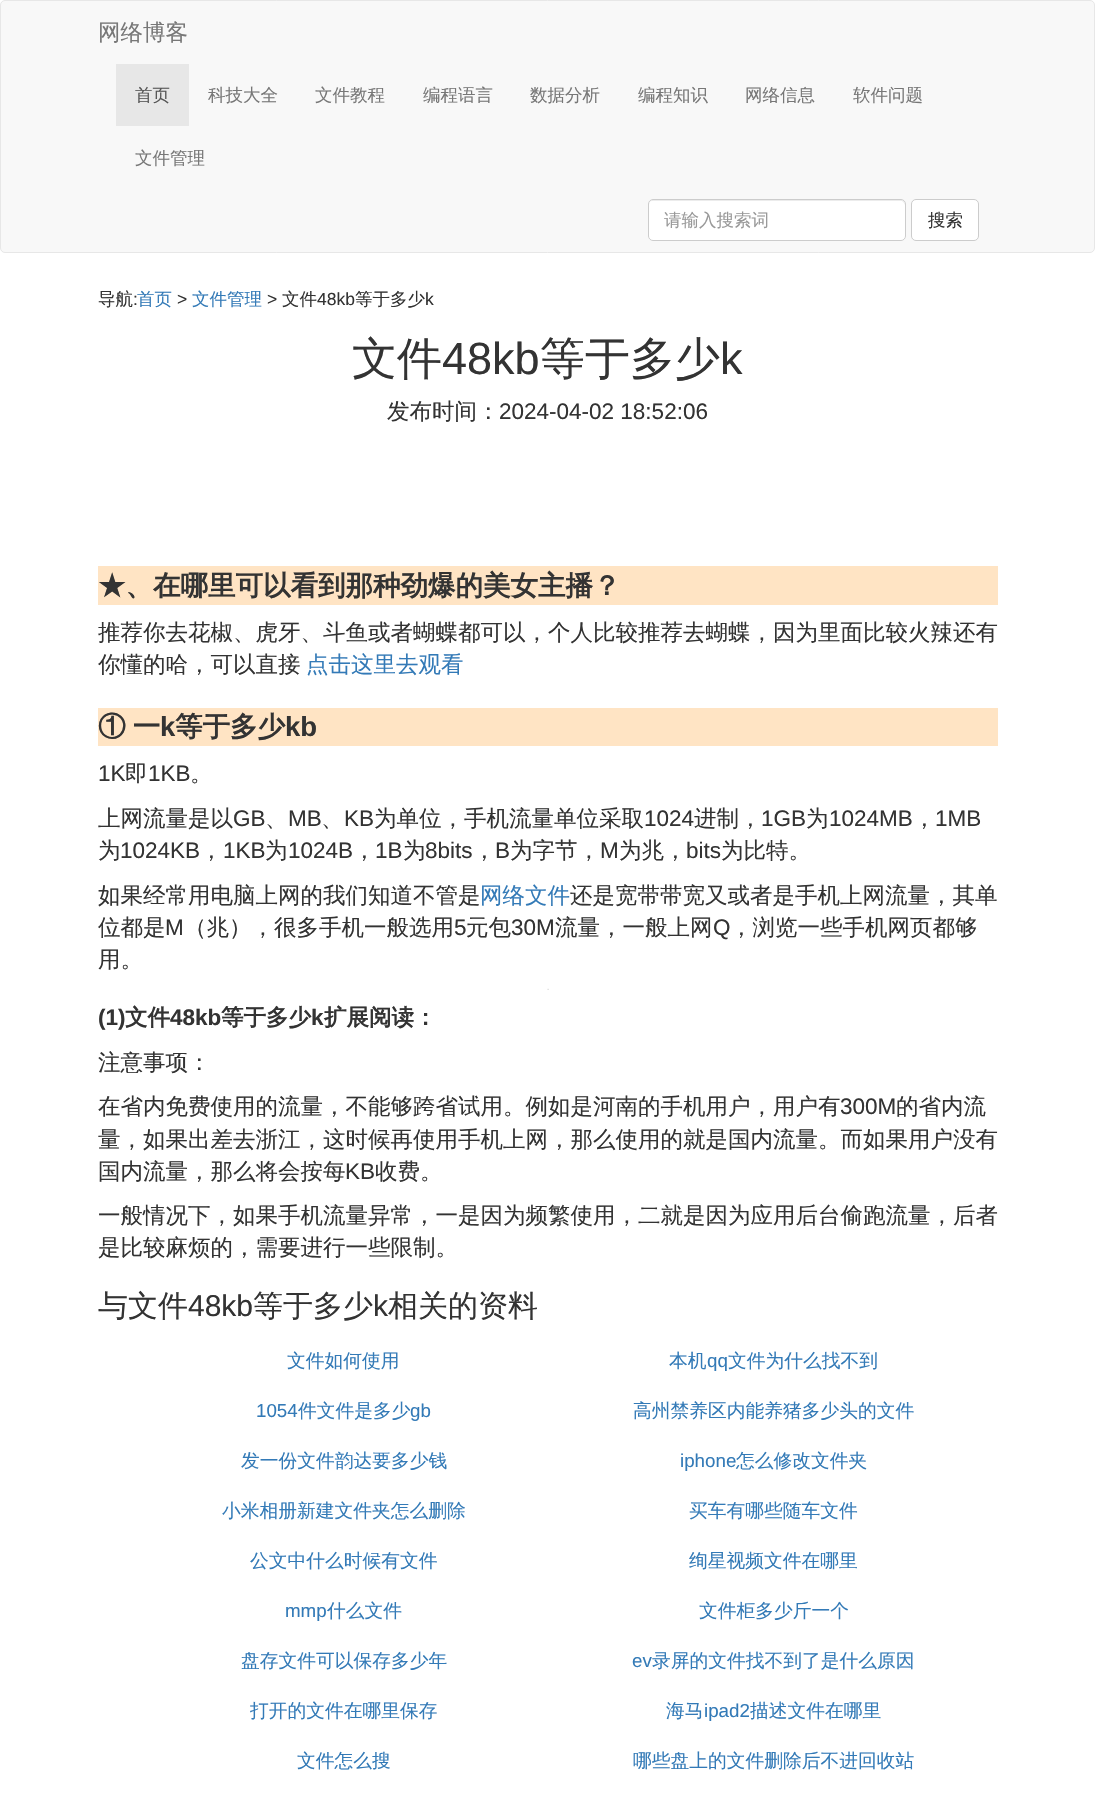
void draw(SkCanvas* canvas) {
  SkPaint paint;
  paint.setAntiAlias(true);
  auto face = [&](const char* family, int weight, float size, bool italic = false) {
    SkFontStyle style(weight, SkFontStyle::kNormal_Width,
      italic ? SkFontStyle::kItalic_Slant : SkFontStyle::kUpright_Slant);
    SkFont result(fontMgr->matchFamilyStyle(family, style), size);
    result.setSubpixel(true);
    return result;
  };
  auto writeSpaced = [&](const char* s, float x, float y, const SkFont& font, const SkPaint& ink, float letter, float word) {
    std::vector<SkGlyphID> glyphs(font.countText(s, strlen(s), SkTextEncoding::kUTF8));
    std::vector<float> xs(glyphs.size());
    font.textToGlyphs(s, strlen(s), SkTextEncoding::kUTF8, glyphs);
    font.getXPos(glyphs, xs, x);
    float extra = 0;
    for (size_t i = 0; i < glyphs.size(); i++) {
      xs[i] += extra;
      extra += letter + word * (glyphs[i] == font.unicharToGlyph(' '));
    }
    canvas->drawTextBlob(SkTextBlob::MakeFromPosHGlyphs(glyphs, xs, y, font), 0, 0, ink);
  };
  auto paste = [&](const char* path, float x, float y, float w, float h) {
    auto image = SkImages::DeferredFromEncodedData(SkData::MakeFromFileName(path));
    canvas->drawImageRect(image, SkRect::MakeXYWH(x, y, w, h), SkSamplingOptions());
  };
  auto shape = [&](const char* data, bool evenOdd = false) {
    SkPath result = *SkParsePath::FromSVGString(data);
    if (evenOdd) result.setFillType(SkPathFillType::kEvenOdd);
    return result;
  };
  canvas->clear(0xffffffff);
  paint.setColor(0xfff8f8f8);
  canvas->drawRoundRect(SkRect::MakeXYWH(0.5f, 0.5f, 1094, 252), 4.5f, 4.5f, paint);
  paint.setStroke(true);
  paint.setStrokeWidth(1);
  paint.setColor(0xffe7e7e7);
  canvas->drawRoundRect(SkRect::MakeXYWH(0.5f, 0.5f, 1094, 252), 4.5f, 4.5f, paint);
  paint.setStroke(false);
  canvas->drawRect(SkRect::MakeXYWH(116, 64, 73, 62), paint);
  paint.setColor(0xffffffff);
  canvas->drawRoundRect(SkRect::MakeXYWH(648, 199, 258, 42), 5, 5, paint);
  paint.setColor(0xffececec);
  canvas->drawPath(shape("M652 201H902L904 203L905 205V204C905 202 903 200 901 200H653C651 200 649 202 649 204V205C649 203 650 201 652 201Z"), paint);
  paint.setStroke(true);
  paint.setColor(0xffcccccc);
  canvas->drawRoundRect(SkRect::MakeXYWH(648.5f, 199.5f, 257, 41), 4.5f, 4.5f, paint);
  paint.setStroke(false);
  paint.setColor(0xffffffff);
  canvas->drawRoundRect(SkRect::MakeXYWH(911.5f, 199.5f, 67, 41), 4.5f, 4.5f, paint);
  paint.setStroke(true);
  paint.setColor(0xffcccccc);
  canvas->drawRoundRect(SkRect::MakeXYWH(911.5f, 199.5f, 67, 41), 4.5f, 4.5f, paint);
  paint.setStroke(false);
  paint.setColor(0xffffe4c4);
  canvas->drawRect(SkRect::MakeXYWH(98, 566, 900, 39), paint);
  canvas->drawRect(SkRect::MakeXYWH(98, 708, 900, 38), paint);
  paste("img/1.png", 547, 988, 2, 2);
  auto f0 = face("WenQuanYi Zen Hei", 500, 22.5f);
  paint.setColor(0xff777777);
  canvas->drawString("网络博客", 98, 40, f0, paint);
  auto f1 = face("WenQuanYi Zen Hei", 500, 17.5f);
  paint.setColor(0xff555555);
  canvas->drawString("首页", 135, 101, f1, paint);
  paint.setColor(0xff777777);
  {
    const struct { const char* s; float x, y; } items[] = {
      {"科技大全", 208, 101},
      {"文件教程", 315, 101},
      {"编程语言", 423, 101},
      {"数据分析", 530, 101},
      {"编程知识", 638, 101},
      {"网络信息", 745, 101},
      {"软件问题", 853, 101},
      {"文件管理", 135, 164},
    };
    for (auto [s, x, y] : items) {
      canvas->drawString(s, x, y, f1, paint);
    }
  }
  paint.setColor(0xff999999);
  canvas->drawString("请输入搜索词", 664, 226, f1, paint);
  paint.setColor(0xff333333);
  canvas->drawString("搜索", 928, 226, f1, paint);
  canvas->drawString("导航", 98, 305, f1, paint);
  auto f2 = face("Liberation Sans", 400, 17.5f);
  canvas->drawString(":", 133, 305, f2, paint);
  paint.setColor(0xff337ab7);
  canvas->drawString("首页", 137, 305, f1, paint);
  paint.setColor(0xff333333);
  canvas->drawString(">", 177, 305, f2, paint);
  paint.setColor(0xff337ab7);
  canvas->drawString("文件管理", 192, 305, f1, paint);
  paint.setColor(0xff333333);
  canvas->drawString(">", 267, 305, f2, paint);
  canvas->drawString("文件", 282, 305, f1, paint);
  canvas->drawString("48kb", 317, 305, f2, paint);
  canvas->drawString("等于多少", 355, 305, f1, paint);
  canvas->drawString("k", 425, 305, f2, paint);
  auto f3 = face("WenQuanYi Zen Hei", 500, 45);
  canvas->drawString("文件", 352, 374, f3, paint);
  auto f4 = face("Liberation Sans", 400, 45);
  canvas->drawString("48kb", 442, 374, f4, paint);
  canvas->drawString("等于多少", 540, 374, f3, paint);
  canvas->drawString("k", 720, 374, f4, paint);
  canvas->drawString("发布时间：", 387, 419, f0, paint);
  auto f5 = face("Liberation Sans", 400, 22.5f);
  canvas->drawString("2024-04-02 18:52:06", 499, 419, f5, paint);
  auto f6 = face("WenQuanYi Zen Hei", 700, 27.5f);
  canvas->drawString("★、在哪里可以看到那种劲爆的美女主播？", 98, 595, f6, paint);
  canvas->drawString("推荐你去花椒、虎牙、斗鱼或者蝴蝶都可以，个人比较推荐去蝴蝶，因为里面比较火辣还有", 98, 640, f0, paint);
  canvas->drawString("你懂的哈，可以直接", 98, 672, f0, paint);
  paint.setColor(0xff337ab7);
  canvas->drawString("点击这里去观看", 306, 672, f0, paint);
  paint.setColor(0xff333333);
  writeSpaced("① 一", 98, 736, f6, paint, 0, -1);
  auto f7 = face("Liberation Sans", 700, 27.5f);
  canvas->drawString("k", 160, 736, f7, paint);
  canvas->drawString("等于多少", 175, 736, f6, paint);
  canvas->drawString("kb", 285, 736, f7, paint);
  canvas->drawString("1K", 98, 781, f5, paint);
  canvas->drawString("即", 125, 781, f0, paint);
  canvas->drawString("1KB", 148, 781, f5, paint);
  canvas->drawString("。", 190, 781, f0, paint);
  canvas->drawString("上网流量是以", 98, 826, f0, paint);
  canvas->drawString("GB", 233, 826, f5, paint);
  canvas->drawString("、", 265, 826, f0, paint);
  canvas->drawString("MB", 288, 826, f5, paint);
  canvas->drawString("、", 321, 826, f0, paint);
  canvas->drawString("KB", 344, 826, f5, paint);
  canvas->drawString("为单位，手机流量单位采取", 374, 826, f0, paint);
  canvas->drawString("1024", 644, 826, f5, paint);
  canvas->drawString("进制，", 694, 826, f0, paint);
  canvas->drawString("1GB", 761, 826, f5, paint);
  canvas->drawString("为", 806, 826, f0, paint);
  canvas->drawString("1024MB", 829, 826, f5, paint);
  canvas->drawString("，", 913, 826, f0, paint);
  canvas->drawString("1MB", 935, 826, f5, paint);
  canvas->drawString("为", 98, 858, f0, paint);
  canvas->drawString("1024KB", 120, 858, f5, paint);
  canvas->drawString("，", 200, 858, f0, paint);
  canvas->drawString("1KB", 223, 858, f5, paint);
  canvas->drawString("为", 265, 858, f0, paint);
  canvas->drawString("1024B", 288, 858, f5, paint);
  canvas->drawString("，", 353, 858, f0, paint);
  canvas->drawString("1B", 375, 858, f5, paint);
  canvas->drawString("为", 403, 858, f0, paint);
  canvas->drawString("8bits", 425, 858, f5, paint);
  canvas->drawString("，", 473, 858, f0, paint);
  canvas->drawString("B", 495, 858, f5, paint);
  canvas->drawString("为字节，", 510, 858, f0, paint);
  canvas->drawString("M", 600, 858, f5, paint);
  canvas->drawString("为兆，", 619, 858, f0, paint);
  canvas->drawString("bits", 686, 858, f5, paint);
  canvas->drawString("为比特。", 721, 858, f0, paint);
  canvas->drawString("如果经常用电脑上网的我们知道不管是", 98, 903, f0, paint);
  paint.setColor(0xff337ab7);
  canvas->drawString("网络文件", 480, 903, f0, paint);
  paint.setColor(0xff333333);
  canvas->drawString("还是宽带带宽又或者是手机上网流量，其单", 570, 903, f0, paint);
  canvas->drawString("位都是", 98, 935, f0, paint);
  canvas->drawString("M", 165, 935, f5, paint);
  canvas->drawString("（兆），很多手机一般选用", 184, 935, f0, paint);
  canvas->drawString("5", 454, 935, f5, paint);
  canvas->drawString("元包", 466, 935, f0, paint);
  canvas->drawString("30M", 511, 935, f5, paint);
  canvas->drawString("流量，一般上网", 555, 935, f0, paint);
  canvas->drawString("Q", 713, 935, f5, paint);
  canvas->drawString("，浏览一些手机网页都够", 730, 935, f0, paint);
  canvas->drawString("用。", 98, 967, f0, paint);
  auto f8 = face("Liberation Sans", 700, 22.5f);
  canvas->drawString("(1)", 98, 1025, f8, paint);
  auto f9 = face("WenQuanYi Zen Hei", 700, 22.5f);
  canvas->drawString("文件", 125, 1025, f9, paint);
  canvas->drawString("48kb", 170, 1025, f8, paint);
  canvas->drawString("等于多少", 221, 1025, f9, paint);
  canvas->drawString("k", 311, 1025, f8, paint);
  canvas->drawString("扩展阅读：", 324, 1025, f9, paint);
  canvas->drawString("注意事项：", 98, 1070, f0, paint);
  canvas->drawString("在省内免费使用的流量，不能够跨省试用。例如是河南的手机用户，用户有", 98, 1114, f0, paint);
  canvas->drawString("300M", 840, 1114, f5, paint);
  {
    const struct { const char* s; float x, y; } items[] = {
      {"的省内流", 896, 1114},
      {"量，如果出差去浙江，这时候再使用手机上网，那么使用的就是国内流量。而如果用户没有", 98, 1147},
      {"国内流量，那么将会按每", 98, 1179},
    };
    for (auto [s, x, y] : items) {
      canvas->drawString(s, x, y, f0, paint);
    }
  }
  canvas->drawString("KB", 345, 1179, f5, paint);
  {
    const struct { const char* s; float x, y; } items[] = {
      {"收费。", 375, 1179},
      {"一般情况下，如果手机流量异常，一是因为频繁使用，二就是因为应用后台偷跑流量，后者", 98, 1223},
      {"是比较麻烦的，需要进行一些限制。", 98, 1255},
    };
    for (auto [s, x, y] : items) {
      canvas->drawString(s, x, y, f0, paint);
    }
  }
  auto f10 = face("WenQuanYi Zen Hei", 500, 30);
  canvas->drawString("与文件", 98, 1316, f10, paint);
  auto f11 = face("Liberation Sans", 400, 30);
  canvas->drawString("48kb", 188, 1316, f11, paint);
  canvas->drawString("等于多少", 253, 1316, f10, paint);
  canvas->drawString("k", 373, 1316, f11, paint);
  canvas->drawString("相关的资料", 388, 1316, f10, paint);
  auto f12 = face("WenQuanYi Zen Hei", 500, 18.75f);
  paint.setColor(0xff337ab7);
  canvas->drawString("文件如何使用", 287, 1367, f12, paint);
  canvas->drawString("本机", 669, 1367, f12, paint);
  auto f13 = face("Liberation Sans", 400, 18.75f);
  canvas->drawString("qq", 707, 1367, f13, paint);
  canvas->drawString("文件为什么找不到", 728, 1367, f12, paint);
  canvas->drawString("1054", 256, 1417, f13, paint);
  canvas->drawString("件文件是多少", 298, 1417, f12, paint);
  canvas->drawString("gb", 410, 1417, f13, paint);
  canvas->drawString("高州禁养区内能养猪多少头的文件", 633, 1417, f12, paint);
  canvas->drawString("发一份文件韵达要多少钱", 241, 1467, f12, paint);
  canvas->drawString("iphone", 680, 1467, f13, paint);
  {
    const struct { const char* s; float x, y; } items[] = {
      {"怎么修改文件夹", 736, 1467},
      {"小米相册新建文件夹怎么删除", 222, 1517},
      {"买车有哪些随车文件", 689, 1517},
      {"公文中什么时候有文件", 250, 1567},
      {"绚星视频文件在哪里", 689, 1567},
    };
    for (auto [s, x, y] : items) {
      canvas->drawString(s, x, y, f12, paint);
    }
  }
  canvas->drawString("mmp", 285, 1617, f13, paint);
  {
    const struct { const char* s; float x, y; } items[] = {
      {"什么文件", 327, 1617},
      {"文件柜多少斤一个", 699, 1617},
      {"盘存文件可以保存多少年", 241, 1667},
    };
    for (auto [s, x, y] : items) {
      canvas->drawString(s, x, y, f12, paint);
    }
  }
  canvas->drawString("ev", 632, 1667, f13, paint);
  {
    const struct { const char* s; float x, y; } items[] = {
      {"录屏的文件找不到了是什么原因", 652, 1667},
      {"打开的文件在哪里保存", 250, 1717},
      {"海马", 666, 1717},
    };
    for (auto [s, x, y] : items) {
      canvas->drawString(s, x, y, f12, paint);
    }
  }
  canvas->drawString("ipad2", 704, 1717, f13, paint);
  {
    const struct { const char* s; float x, y; } items[] = {
      {"描述文件在哪里", 750, 1717},
      {"文件怎么搜", 297, 1767},
      {"哪些盘上的文件删除后不进回收站", 633, 1767},
    };
    for (auto [s, x, y] : items) {
      canvas->drawString(s, x, y, f12, paint);
    }
  }
}
